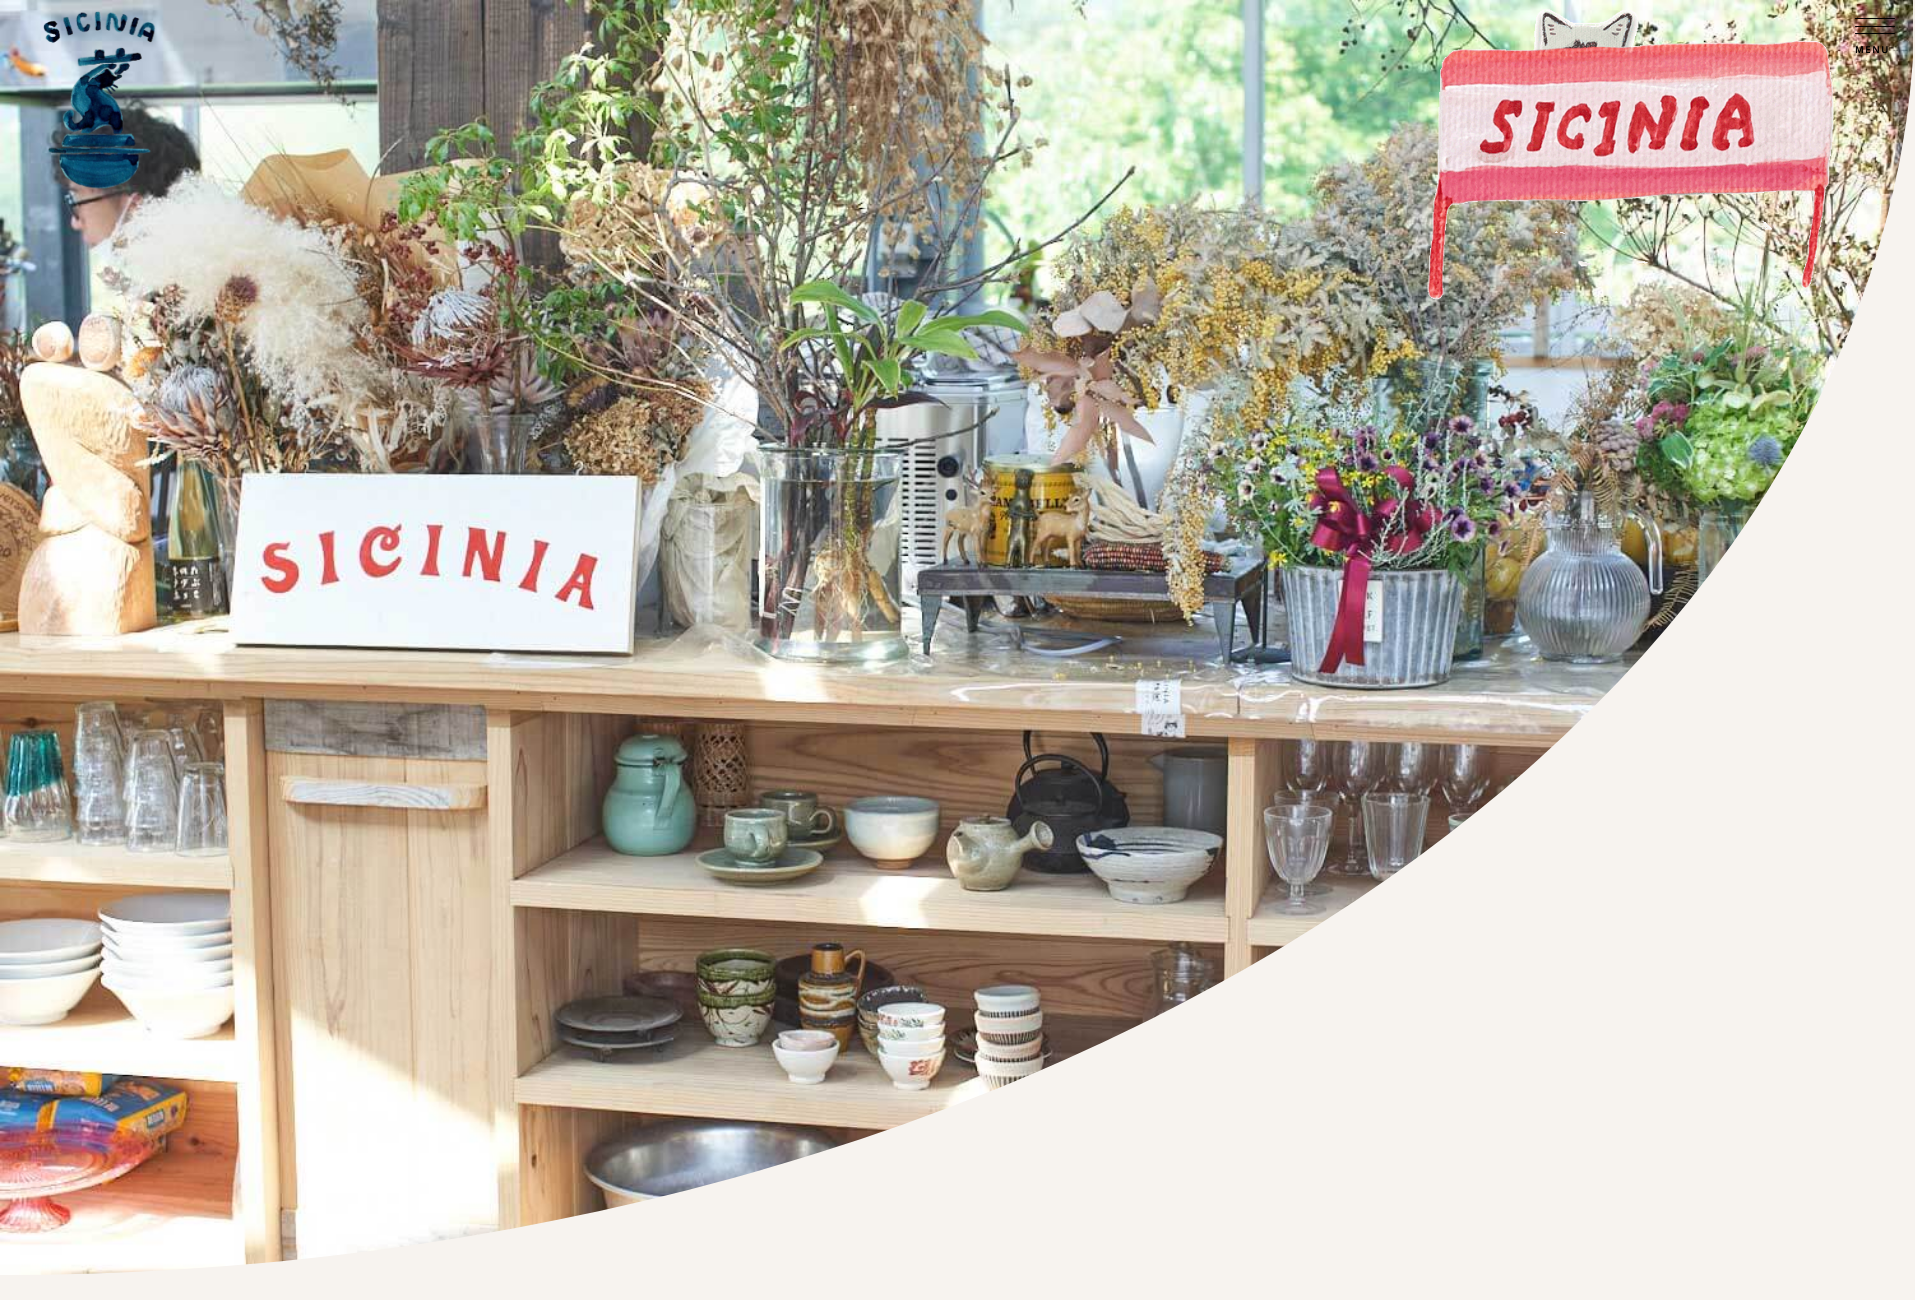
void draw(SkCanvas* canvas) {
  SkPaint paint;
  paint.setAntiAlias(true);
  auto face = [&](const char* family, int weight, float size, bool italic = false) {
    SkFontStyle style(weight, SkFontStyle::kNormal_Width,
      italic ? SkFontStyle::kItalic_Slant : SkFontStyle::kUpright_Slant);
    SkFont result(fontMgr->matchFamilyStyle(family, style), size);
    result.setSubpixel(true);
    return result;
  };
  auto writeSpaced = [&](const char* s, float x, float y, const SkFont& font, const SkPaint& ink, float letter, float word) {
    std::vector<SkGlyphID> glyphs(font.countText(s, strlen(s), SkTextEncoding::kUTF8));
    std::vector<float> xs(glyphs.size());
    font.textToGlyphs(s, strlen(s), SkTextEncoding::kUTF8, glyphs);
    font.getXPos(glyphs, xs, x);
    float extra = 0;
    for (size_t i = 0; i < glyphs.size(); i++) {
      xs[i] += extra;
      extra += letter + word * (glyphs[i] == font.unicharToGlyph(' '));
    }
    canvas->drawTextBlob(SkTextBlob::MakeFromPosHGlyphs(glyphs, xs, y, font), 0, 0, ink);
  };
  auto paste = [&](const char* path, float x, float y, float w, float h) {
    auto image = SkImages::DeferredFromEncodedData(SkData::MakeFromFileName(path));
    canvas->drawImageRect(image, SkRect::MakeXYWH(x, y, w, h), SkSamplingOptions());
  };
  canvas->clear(0xfff7f3ef);
  paste("img/1.png", 0, 0, 1913, 1275);
  paste("img/2.png", 1427, 9, 407, 290);
  paste("img/3.png", 43, 11, 113, 178);
  paint.setColor(0xff000000);
  canvas->drawRoundRect(SkRect::MakeXYWH(1855, 18, 40, 1), 0.5f, 0.5f, paint);
  canvas->drawRoundRect(SkRect::MakeXYWH(1855, 26, 40, 1), 0.5f, 0.5f, paint);
  canvas->drawRoundRect(SkRect::MakeXYWH(1855, 33, 40, 1), 0.5f, 0.5f, paint);
  auto f0 = face("Noto Sans", 600, 9.5f);
  writeSpaced("MENU", 1855, 53, f0, paint, 1.5f, 0);
}
